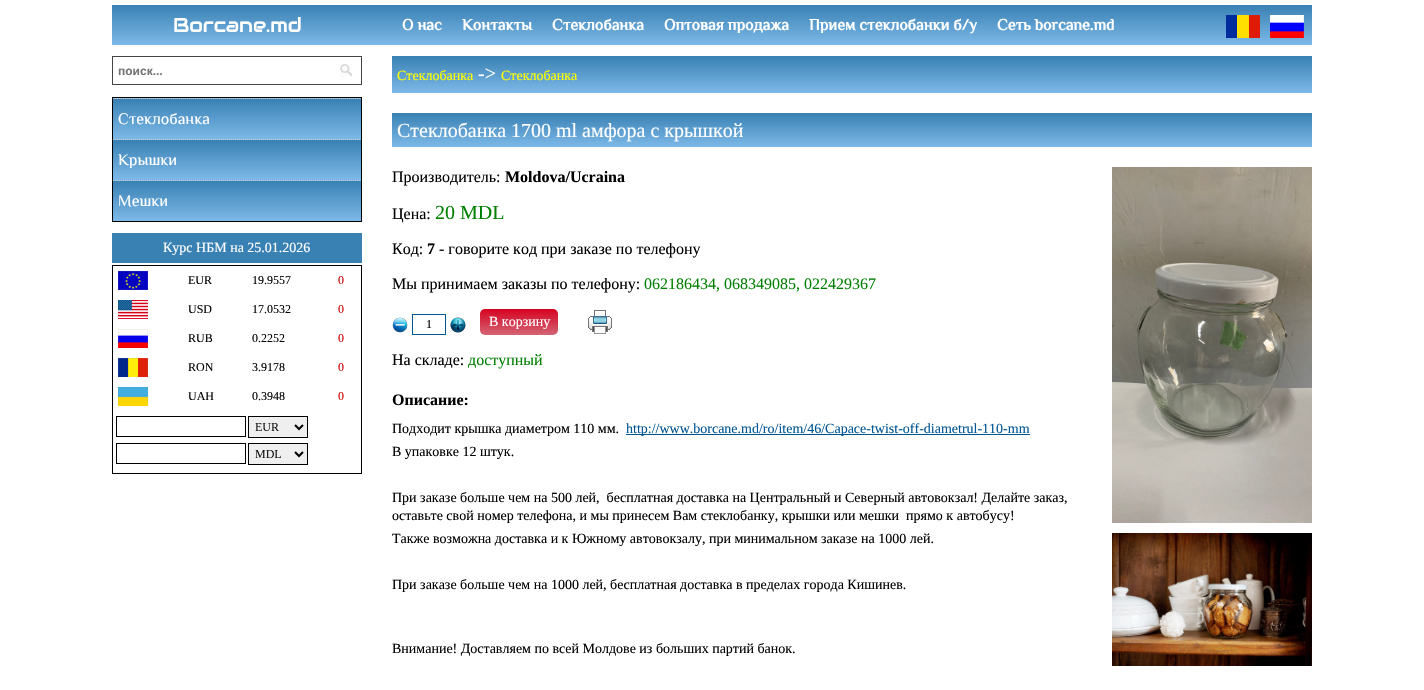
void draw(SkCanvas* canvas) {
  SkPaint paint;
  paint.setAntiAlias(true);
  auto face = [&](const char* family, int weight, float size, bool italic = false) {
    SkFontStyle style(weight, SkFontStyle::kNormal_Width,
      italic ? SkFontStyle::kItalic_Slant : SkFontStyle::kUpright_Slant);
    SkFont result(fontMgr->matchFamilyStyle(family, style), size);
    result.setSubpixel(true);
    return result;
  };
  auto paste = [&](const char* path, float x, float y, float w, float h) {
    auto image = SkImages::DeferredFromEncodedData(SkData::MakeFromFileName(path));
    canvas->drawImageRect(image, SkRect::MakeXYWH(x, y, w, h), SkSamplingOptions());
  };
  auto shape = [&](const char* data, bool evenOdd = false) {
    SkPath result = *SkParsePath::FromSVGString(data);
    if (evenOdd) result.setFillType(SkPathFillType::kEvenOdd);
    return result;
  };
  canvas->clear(0xffffffff);
  {
    const SkColor colors[] = {0xff3981b3, 0xff7db9e8};
    const float stops[] = {0, 1};
    const SkPoint ends[] = {{712, 5}, {712, 45}};
    paint.setShader(SkGradientShader::MakeLinear(ends, colors, stops, 2, SkTileMode::kClamp));
    paint.setAlpha(255);
  }
  canvas->drawRect(SkRect::MakeXYWH(112, 5, 1200, 40), paint);
  paste("img/1.png", 1226, 15, 34, 23);
  paste("img/2.png", 1270, 15, 34, 23);
  paint.setStroke(true);
  paint.setStrokeWidth(1);
  paint.setShader(nullptr);
  paint.setColor(0xff444444);
  canvas->drawRect(SkRect::MakeXYWH(112.5f, 56.5f, 249, 28), paint);
  paste("img/3.png", 340, 64, 12, 13);
  paint.setColor(0xff000000);
  canvas->drawRect(SkRect::MakeXYWH(112.5f, 97.5f, 249, 124), paint);
  paint.setStroke(false);
  {
    const SkColor colors[] = {0xff3981b3, 0xff7db9e8};
    const float stops[] = {0, 1};
    const SkPoint ends[] = {{237, 59}, {237, 99}};
    paint.setShader(SkGradientShader::MakeLinear(ends, colors, stops, 2, SkTileMode::kClamp));
    paint.setAlpha(255);
  }
  canvas->drawRect(SkRect::MakeXYWH(113, 98, 248, 1), paint);
  {
    const SkColor colors[] = {0xff3981b3, 0xff7db9e8};
    const float stops[] = {0, 1};
    const SkPoint ends[] = {{237, 99}, {237, 139}};
    paint.setShader(SkGradientShader::MakeLinear(ends, colors, stops, 2, SkTileMode::kClamp));
    paint.setAlpha(255);
  }
  canvas->drawRect(SkRect::MakeXYWH(113, 99, 248, 40), paint);
  paint.setStroke(true);
  paint.setShader(nullptr);
  paint.setColor(0xffcccccc);
  paint.setPathEffect(SkDashPathEffect::Make({{1, 1}}, 0));
  canvas->drawPath(shape("M113 98.5H361"), paint);
  paint.setPathEffect(nullptr);
  paint.setStroke(false);
  {
    const SkColor colors[] = {0xff3981b3, 0xff7db9e8};
    const float stops[] = {0, 1};
    const SkPoint ends[] = {{237, 100}, {237, 140}};
    paint.setShader(SkGradientShader::MakeLinear(ends, colors, stops, 2, SkTileMode::kClamp));
    paint.setAlpha(255);
  }
  canvas->drawRect(SkRect::MakeXYWH(113, 139, 248, 1), paint);
  {
    const SkColor colors[] = {0xff3981b3, 0xff7db9e8};
    const float stops[] = {0, 1};
    const SkPoint ends[] = {{237, 140}, {237, 180}};
    paint.setShader(SkGradientShader::MakeLinear(ends, colors, stops, 2, SkTileMode::kClamp));
    paint.setAlpha(255);
  }
  canvas->drawRect(SkRect::MakeXYWH(113, 140, 248, 40), paint);
  paint.setStroke(true);
  paint.setShader(nullptr);
  paint.setColor(0xffcccccc);
  paint.setPathEffect(SkDashPathEffect::Make({{1, 1}}, 0));
  canvas->drawPath(shape("M113 139.5H361"), paint);
  paint.setPathEffect(nullptr);
  paint.setStroke(false);
  {
    const SkColor colors[] = {0xff3981b3, 0xff7db9e8};
    const float stops[] = {0, 1};
    const SkPoint ends[] = {{237, 141}, {237, 181}};
    paint.setShader(SkGradientShader::MakeLinear(ends, colors, stops, 2, SkTileMode::kClamp));
    paint.setAlpha(255);
  }
  canvas->drawRect(SkRect::MakeXYWH(113, 180, 248, 1), paint);
  {
    const SkColor colors[] = {0xff3981b3, 0xff7db9e8};
    const float stops[] = {0, 1};
    const SkPoint ends[] = {{237, 181}, {237, 221}};
    paint.setShader(SkGradientShader::MakeLinear(ends, colors, stops, 2, SkTileMode::kClamp));
    paint.setAlpha(255);
  }
  canvas->drawRect(SkRect::MakeXYWH(113, 181, 248, 40), paint);
  paint.setStroke(true);
  paint.setShader(nullptr);
  paint.setColor(0xffcccccc);
  paint.setPathEffect(SkDashPathEffect::Make({{1, 1}}, 0));
  canvas->drawPath(shape("M113 180.5H361"), paint);
  paint.setPathEffect(nullptr);
  paint.setStroke(false);
  paint.setColor(0xff3981b3);
  canvas->drawRect(SkRect::MakeXYWH(112, 233, 250, 30), paint);
  paint.setStroke(true);
  paint.setColor(0xff000000);
  canvas->drawRect(SkRect::MakeXYWH(112.5f, 265.5f, 249, 208), paint);
  paste("img/4.png", 118, 271, 30, 19);
  paste("img/5.png", 118, 300, 30, 19);
  paste("img/6.png", 118, 329, 30, 19);
  paste("img/7.png", 118, 358, 30, 19);
  paste("img/8.png", 118, 387, 30, 19);
  paste("img/9.png", 116, 416, 192, 49);
  paint.setStroke(false);
  {
    const SkColor colors[] = {0xff3981b3, 0xff7db9e8};
    const float stops[] = {0, 1};
    const SkPoint ends[] = {{852, 56}, {852, 93}};
    paint.setShader(SkGradientShader::MakeLinear(ends, colors, stops, 2, SkTileMode::kClamp));
    paint.setAlpha(255);
  }
  canvas->drawRect(SkRect::MakeXYWH(392, 56, 920, 37), paint);
  {
    const SkColor colors[] = {0xff3981b3, 0xff7db9e8};
    const float stops[] = {0, 1};
    const SkPoint ends[] = {{852, 113}, {852, 147}};
    paint.setShader(SkGradientShader::MakeLinear(ends, colors, stops, 2, SkTileMode::kClamp));
    paint.setAlpha(255);
  }
  canvas->drawRect(SkRect::MakeXYWH(392, 113, 920, 34), paint);
  paste("img/10.png", 1112, 167, 200, 356);
  paste("img/11.png", 1112, 533, 200, 133);
  paste("img/12.png", 392, 317, 16, 16);
  paint.setStroke(true);
  paint.setShader(nullptr);
  paint.setColor(0xff005694);
  canvas->drawRect(SkRect::MakeXYWH(412.5f, 314.5f, 33, 20), paint);
  paste("img/13.png", 450, 317, 16, 16);
  paint.setStroke(false);
  {
    const SkColor colors[] = {0xffd50221, 0xffd36574};
    const float stops[] = {0, 1};
    const SkPoint ends[] = {{519, 309}, {519, 335}};
    paint.setShader(SkGradientShader::MakeLinear(ends, colors, stops, 2, SkTileMode::kClamp));
    paint.setAlpha(255);
  }
  canvas->drawRoundRect(SkRect::MakeXYWH(480, 309, 78, 26), 5, 5, paint);
  paste("img/14.png", 588, 310, 24, 24);
  paint.setShader(nullptr);
  paint.setColor(0xff005694);
  canvas->drawRect(SkRect::MakeXYWH(626, 434, 404, 1), paint);
  auto f0 = face("Audiowide", 400, 20);
  paint.setColor(0xffffffff);
  canvas->drawString("Borcane.md", 173, 32, f0, paint);
  auto f1 = face("Philosopher", 700, 16);
  {
    const struct { const char* s; float x, y; } items[] = {
      {"О нас", 402, 30},
      {"Контакты", 462, 30},
      {"Стеклобанка", 552, 30},
      {"Оптовая продажа", 664, 30},
      {"Прием стеклобанки б/у", 809, 30},
      {"Сеть borcane.md", 997, 30},
    };
    for (auto [s, x, y] : items) {
      canvas->drawString(s, x, y, f1, paint);
    }
  }
  auto f2 = face("Liberation Sans", 700, 12);
  paint.setColor(0xff757575);
  canvas->drawString("поиск...", 118, 75, f2, paint);
  auto f3 = face("Philosopher", 400, 16);
  paint.setColor(0xffffffff);
  {
    const struct { const char* s; float x, y; } items[] = {
      {"Стеклобанка", 118, 124},
      {"Крышки", 118, 165},
      {"Мешки", 118, 206},
    };
    for (auto [s, x, y] : items) {
      canvas->drawString(s, x, y, f3, paint);
    }
  }
  auto f4 = face("Liberation Serif", 400, 14);
  canvas->drawString("Курс НБМ на 25.01.2026", 163, 252, f4, paint);
  auto f5 = face("Liberation Serif", 400, 12);
  paint.setColor(0xff000000);
  canvas->drawString("EUR", 188, 284, f5, paint);
  canvas->drawString("19.9557", 252, 284, f5, paint);
  paint.setColor(0xffcc0000);
  canvas->drawString("0", 338, 284, f5, paint);
  paint.setColor(0xff000000);
  canvas->drawString("USD", 188, 313, f5, paint);
  canvas->drawString("17.0532", 252, 313, f5, paint);
  paint.setColor(0xffcc0000);
  canvas->drawString("0", 338, 313, f5, paint);
  paint.setColor(0xff000000);
  canvas->drawString("RUB", 188, 342, f5, paint);
  canvas->drawString("0.2252", 252, 342, f5, paint);
  paint.setColor(0xffcc0000);
  canvas->drawString("0", 338, 342, f5, paint);
  paint.setColor(0xff000000);
  canvas->drawString("RON", 188, 371, f5, paint);
  canvas->drawString("3.9178", 252, 371, f5, paint);
  paint.setColor(0xffcc0000);
  canvas->drawString("0", 338, 371, f5, paint);
  paint.setColor(0xff000000);
  canvas->drawString("UAH", 188, 400, f5, paint);
  canvas->drawString("0.3948", 252, 400, f5, paint);
  paint.setColor(0xffcc0000);
  canvas->drawString("0", 338, 400, f5, paint);
  paint.setColor(0xffffff00);
  canvas->drawString("Стеклобанка", 397, 80, f4, paint);
  auto f6 = face("Liberation Serif", 400, 20);
  paint.setColor(0xffffffff);
  canvas->drawString("->", 478, 80, f6, paint);
  paint.setColor(0xffffff00);
  canvas->drawString("Стеклобанка", 501, 80, f4, paint);
  paint.setColor(0xffffffff);
  canvas->drawString("Стеклобанка 1700 ml амфора с крышкой", 397, 137, f6, paint);
  auto f7 = face("Liberation Serif", 400, 16);
  paint.setColor(0xff000000);
  canvas->drawString("Производитель:", 392, 182, f7, paint);
  auto f8 = face("Liberation Serif", 700, 16);
  canvas->drawString("Moldova/Ucraina", 505, 182, f8, paint);
  canvas->drawString("Цена:", 392, 219, f7, paint);
  paint.setColor(0xff008000);
  canvas->drawString("20 MDL", 435, 219, f6, paint);
  paint.setColor(0xff000000);
  canvas->drawString("Код:", 392, 254, f7, paint);
  canvas->drawString("7", 427, 254, f8, paint);
  canvas->drawString("- говорите код при заказе по телефону", 439, 254, f7, paint);
  canvas->drawString("Мы принимаем заказы по телефону:", 392, 289, f7, paint);
  paint.setColor(0xff008000);
  canvas->drawString("062186434, 068349085, 022429367", 644, 289, f7, paint);
  paint.setColor(0xff000000);
  canvas->drawString("1", 426, 328, f5, paint);
  paint.setColor(0xffffffff);
  canvas->drawString("В корзину", 489, 326, f4, paint);
  paint.setColor(0xff000000);
  canvas->drawString("На складе:", 392, 365, f7, paint);
  paint.setColor(0xff008000);
  canvas->drawString("доступный", 468, 365, f7, paint);
  paint.setColor(0xff000000);
  canvas->drawString("Описание:", 392, 405, f8, paint);
  canvas->drawString("Подходит крышка диаметром 110 мм.", 392, 433, f4, paint);
  paint.setColor(0xff005694);
  canvas->drawString("http://www.borcane.md/ro/item/46/Capace-twist-off-diametrul-110-mm", 626, 433, f4, paint);
  paint.setColor(0xff000000);
  {
    const struct { const char* s; float x, y; } items[] = {
      {"В упаковке 12 штук.", 392, 456},
      {"При заказе больше чем на 500 лей,  бесплатная доставка на Центральный и Северный автовокзал! Делайте заказ,", 392, 502},
      {"оставьте свой номер телефона, и мы принесем Вам стеклобанку, крышки или мешки  прямо к автобусу!", 392, 520},
      {"Также возможна доставка и к Южному автовокзалу, при минимальном заказе на 1000 лей.", 392, 543},
      {"При заказе больше чем на 1000 лей, бесплатная доставка в пределах города Кишинев.", 392, 589},
      {"Внимание! Доставляем по всей Молдове из больших партий банок.", 392, 653},
    };
    for (auto [s, x, y] : items) {
      canvas->drawString(s, x, y, f4, paint);
    }
  }
}
